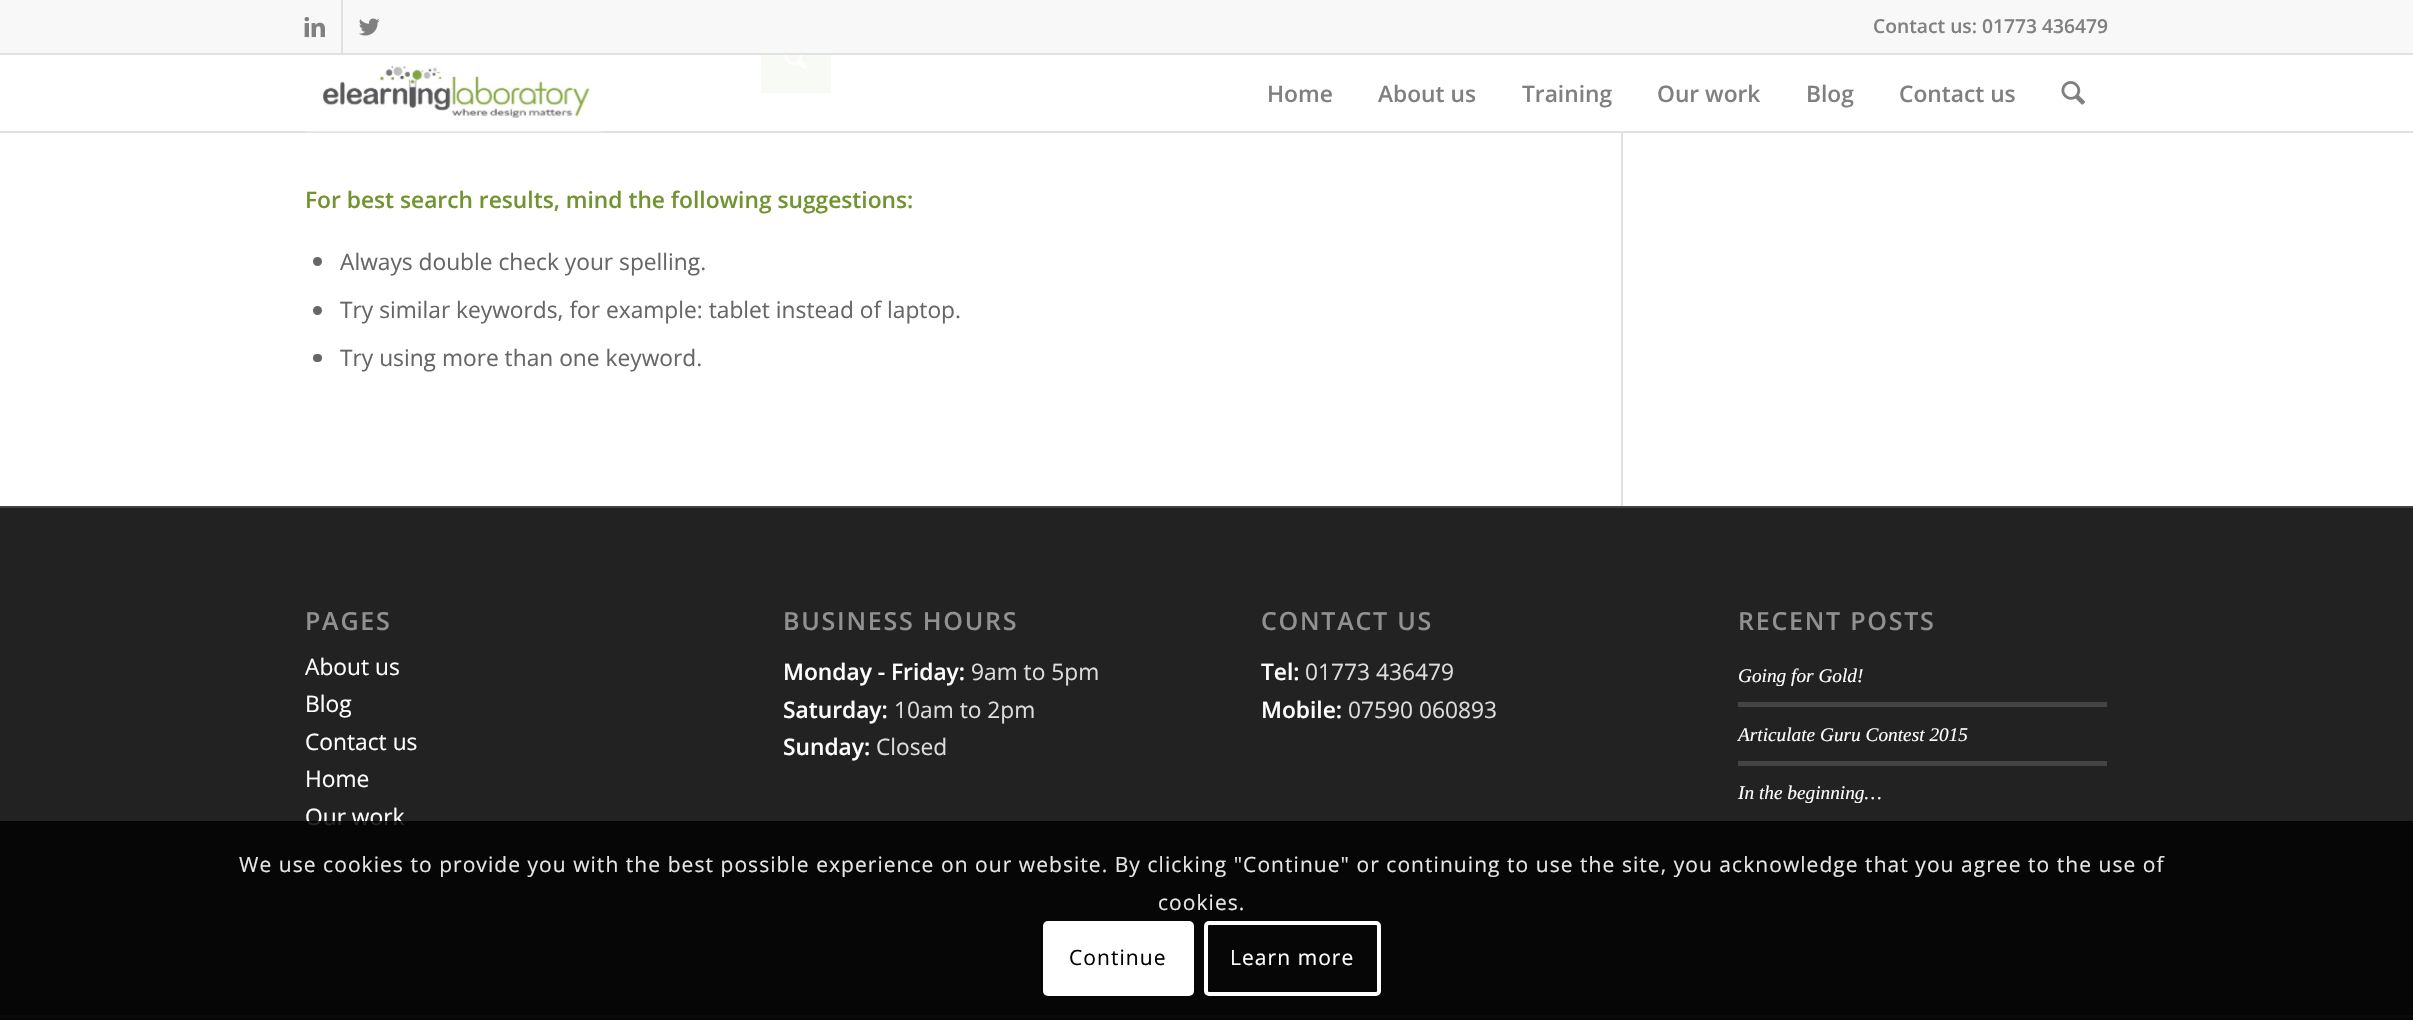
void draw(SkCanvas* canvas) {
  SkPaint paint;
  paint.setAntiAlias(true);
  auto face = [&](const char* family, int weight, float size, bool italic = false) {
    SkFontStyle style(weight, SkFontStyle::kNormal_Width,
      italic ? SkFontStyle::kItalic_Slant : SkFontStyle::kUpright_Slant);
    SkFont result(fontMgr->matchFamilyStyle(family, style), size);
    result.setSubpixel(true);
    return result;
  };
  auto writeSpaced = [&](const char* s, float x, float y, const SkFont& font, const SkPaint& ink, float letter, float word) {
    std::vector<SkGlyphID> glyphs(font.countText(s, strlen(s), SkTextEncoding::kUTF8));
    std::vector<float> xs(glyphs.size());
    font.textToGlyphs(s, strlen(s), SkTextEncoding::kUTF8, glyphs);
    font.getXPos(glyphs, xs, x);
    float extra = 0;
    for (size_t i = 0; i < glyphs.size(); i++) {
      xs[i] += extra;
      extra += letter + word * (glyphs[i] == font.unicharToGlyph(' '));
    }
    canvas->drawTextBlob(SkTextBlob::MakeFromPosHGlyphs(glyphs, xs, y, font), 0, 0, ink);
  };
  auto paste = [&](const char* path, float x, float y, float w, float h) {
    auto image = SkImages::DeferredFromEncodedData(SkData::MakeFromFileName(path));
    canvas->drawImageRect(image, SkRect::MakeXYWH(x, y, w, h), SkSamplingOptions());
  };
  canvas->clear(0xffffffff);
  {
    const struct { float x, y, w, h; SkColor color; } items[] = {
      {0, 0, 2413, 53, 0xfff8f8f8},
      {0, 53, 2413, 2, 0xffe1e1e1},
      {341, 0, 2, 53, 0xffe1e1e1},
    };
    for (auto [x, y, w, h, color] : items) {
      paint.setColor(color);
      canvas->drawRect(SkRect::MakeXYWH(x, y, w, h), paint);
    }
  }
  paste("img/1.png", 304, 17, 21, 21);
  paste("img/2.png", 359, 18, 21, 18);
  canvas->drawRect(SkRect::MakeXYWH(0, 131, 2413, 2), paint);
  paste("img/3.png", 306, 55, 296, 77);
  paste("img/4.png", 2061, 81, 24, 24);
  canvas->drawRect(SkRect::MakeXYWH(1621, 133, 2, 373), paint);
  paint.setColor(0xfff8faf5);
  canvas->drawRect(SkRect::MakeXYWH(761, 55, 70, 38), paint);
  paste("img/5.png", 784, 55, 24, 15);
  paint.setColor(0xff666666);
  canvas->drawCircle(317.5f, 261.5f, 4.5f, paint);
  canvas->drawCircle(317.5f, 310.5f, 4.5f, paint);
  canvas->drawRoundRect(SkRect::MakeXYWH(313, 354, 9, 8), 4, 4, paint);
  {
    const struct { float x, y, w, h; SkColor color; } items[] = {
      {0, 508, 2413, 507, 0xff222222},
      {0, 506, 2413, 2, 0xff444444},
      {1738, 702, 369, 5, 0xff444444},
      {1738, 761, 369, 5, 0xff444444},
      {0, 1017, 2413, 3, 0xff333333},
      {0, 1015, 2413, 2, 0xff444444},
    };
    for (auto [x, y, w, h, color] : items) {
      paint.setColor(color);
      canvas->drawRect(SkRect::MakeXYWH(x, y, w, h), paint);
    }
  }
  auto f0 = face("Open Sans", 600, 19.25f);
  paint.setColor(0xff808080);
  canvas->drawString("Contact us: 01773 436479", 1873, 33, f0, paint);
  auto f1 = face("Open Sans", 600, 22.75f);
  {
    const struct { const char* s; float x, y; } items[] = {
      {"Home", 1267, 102},
      {"About us", 1378, 102},
      {"Training", 1522, 102},
      {"Our work", 1657, 102},
      {"Blog", 1806, 102},
      {"Contact us", 1899, 102},
    };
    for (auto [s, x, y] : items) {
      canvas->drawString(s, x, y, f1, paint);
    }
  }
  paint.setColor(0xff719430);
  canvas->drawString("For best search results, mind the following suggestions:", 305, 208, f1, paint);
  auto f2 = face("Open Sans", 400, 22.75f);
  paint.setColor(0xff666666);
  {
    const struct { const char* s; float x, y; } items[] = {
      {"Always double check your spelling.", 340, 270},
      {"Try similar keywords, for example: tablet instead of laptop.", 340, 318},
      {"Try using more than one keyword.", 340, 366},
    };
    for (auto [s, x, y] : items) {
      canvas->drawString(s, x, y, f2, paint);
    }
  }
  auto f3 = face("Open Sans", 600, 25);
  paint.setColor(0xff919191);
  writeSpaced("PAGES", 305, 630, f3, paint, 1.75f, 0);
  paint.setColor(0xffffffff);
  {
    const struct { const char* s; float x, y; } items[] = {
      {"About us", 305, 675},
      {"Blog", 305, 712},
      {"Contact us", 305, 750},
      {"Home", 305, 787},
      {"Our work", 305, 825},
    };
    for (auto [s, x, y] : items) {
      canvas->drawString(s, x, y, f2, paint);
    }
  }
  paint.setColor(0xff919191);
  writeSpaced("BUSINESS HOURS", 783, 630, f3, paint, 1.75f, 0);
  paint.setColor(0xffffffff);
  canvas->drawString("Monday - Friday:", 783, 680, f1, paint);
  paint.setColor(0xffdddddd);
  canvas->drawString("9am to 5pm", 971, 680, f2, paint);
  paint.setColor(0xffffffff);
  canvas->drawString("Saturday:", 783, 718, f1, paint);
  paint.setColor(0xffdddddd);
  canvas->drawString("10am to 2pm", 894, 718, f2, paint);
  paint.setColor(0xffffffff);
  canvas->drawString("Sunday:", 783, 755, f1, paint);
  paint.setColor(0xffdddddd);
  canvas->drawString("Closed", 876, 755, f2, paint);
  paint.setColor(0xff919191);
  writeSpaced("CONTACT US", 1261, 630, f3, paint, 1.75f, 0);
  paint.setColor(0xffffffff);
  canvas->drawString("Tel:", 1261, 680, f1, paint);
  paint.setColor(0xffdddddd);
  canvas->drawString("01773 436479", 1305, 680, f2, paint);
  paint.setColor(0xffffffff);
  canvas->drawString("Mobile:", 1261, 718, f1, paint);
  paint.setColor(0xffdddddd);
  canvas->drawString("07590 060893", 1348, 718, f2, paint);
  paint.setColor(0xff919191);
  writeSpaced("RECENT POSTS", 1738, 630, f3, paint, 1.75f, 0);
  auto f4 = face("Liberation Serif", 400, 19.3f, true);
  paint.setColor(0xffffffff);
  {
    const struct { const char* s; float x, y; } items[] = {
      {"Going for Gold!", 1738, 682},
      {"Articulate Guru Contest 2015", 1738, 741},
      {"In the beginning…", 1738, 799},
    };
    for (auto [s, x, y] : items) {
      canvas->drawString(s, x, y, f4, paint);
    }
  }
  paint.setColor(0xd9000000);
  canvas->drawRect(SkRect::MakeXYWH(0, 821, 2413, 199), paint);
  auto f5 = face("Open Sans", 400, 21);
  paint.setColor(0xffe6e6e6);
  writeSpaced("We use cookies to provide you with the best possible experience on our website. By clicking \"Continue\" or continuing to use the site, you acknowledge that you agree to the use of", 239, 872, f5, paint, 1.05f, 0);
  writeSpaced("cookies.", 1158, 910, f5, paint, 1.05f, 0);
  paint.setColor(0xffffffff);
  canvas->drawRoundRect(SkRect::MakeXYWH(1043, 921, 151, 75), 5, 5, paint);
  paint.setColor(0xff000000);
  writeSpaced("Continue", 1069, 965, f5, paint, 1.05f, 0);
  paint.setStroke(true);
  paint.setStrokeWidth(4);
  paint.setColor(0xffffffff);
  canvas->drawRoundRect(SkRect::MakeXYWH(1206, 923, 173, 71), 3, 3, paint);
  paint.setStroke(false);
  writeSpaced("Learn more", 1230, 965, f5, paint, 1.05f, 0);
}
